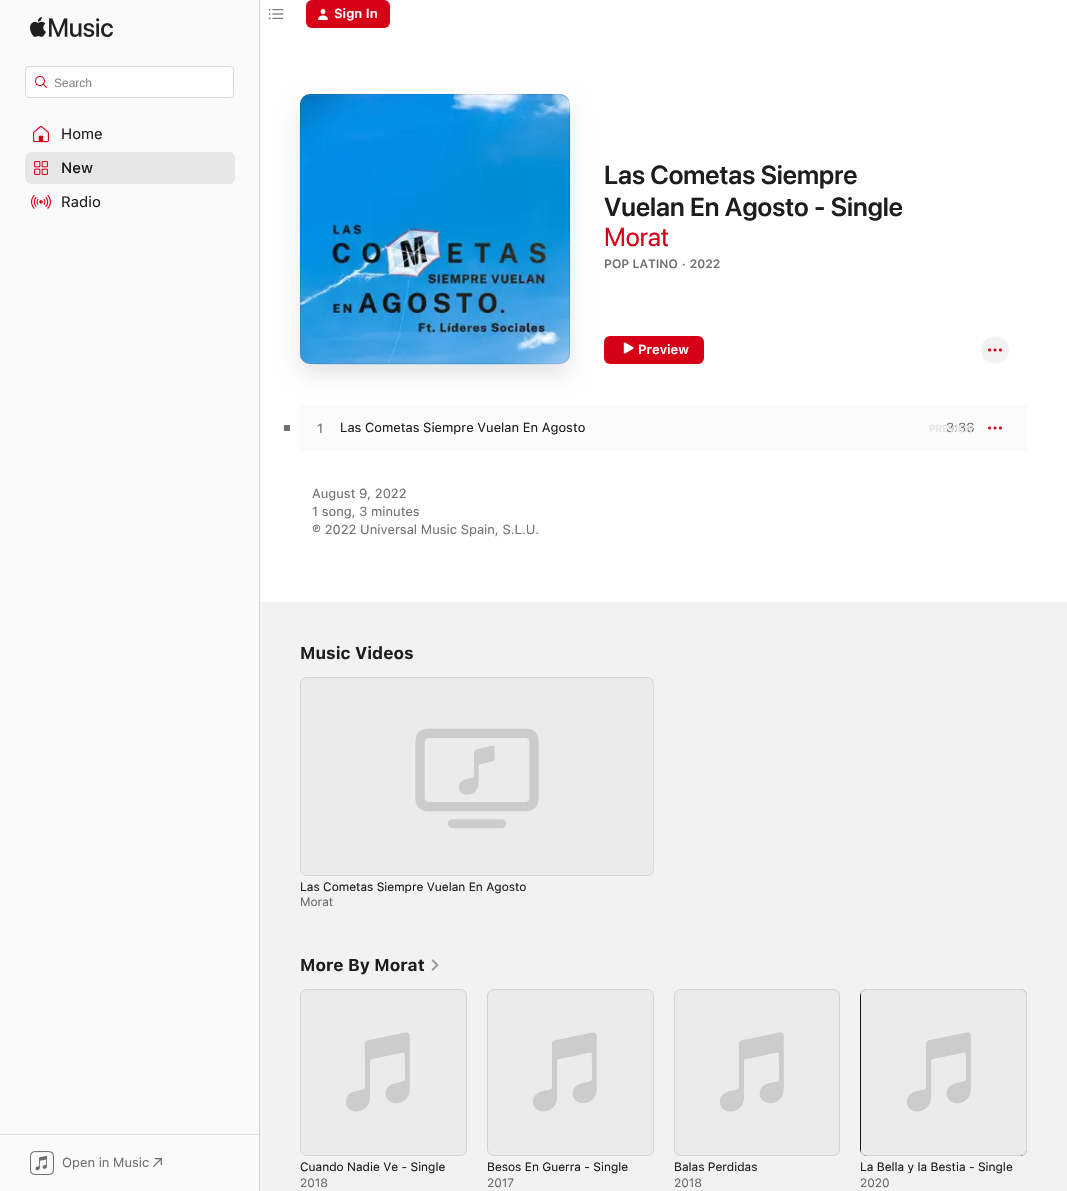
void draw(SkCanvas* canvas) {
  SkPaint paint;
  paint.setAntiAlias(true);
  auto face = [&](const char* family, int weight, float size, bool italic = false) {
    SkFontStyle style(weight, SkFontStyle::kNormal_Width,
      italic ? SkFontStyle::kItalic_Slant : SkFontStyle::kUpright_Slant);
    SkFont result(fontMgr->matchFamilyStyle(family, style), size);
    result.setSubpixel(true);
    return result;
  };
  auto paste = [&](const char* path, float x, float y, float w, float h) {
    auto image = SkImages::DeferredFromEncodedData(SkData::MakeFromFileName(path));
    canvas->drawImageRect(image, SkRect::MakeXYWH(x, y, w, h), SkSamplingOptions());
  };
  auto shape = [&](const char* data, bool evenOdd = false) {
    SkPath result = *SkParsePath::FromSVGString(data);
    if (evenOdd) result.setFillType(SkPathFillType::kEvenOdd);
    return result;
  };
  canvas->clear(0xffffffff);
  paste("img/1.png", 268, 8, 16, 12);
  paint.setColor(0xffd60017);
  canvas->drawRoundRect(SkRect::MakeXYWH(306, 0, 84, 28), 6, 6, paint);
  paste("img/2.png", 318, 9, 10, 11);
  {
    const struct { float x, y, w, h; SkColor color; } items[] = {
      {0, 0, 259, 1191, 0xfffafafa},
      {0, 1134, 260, 1, 0xffe1e1e1},
      {259, 0, 1, 1191, 0xffd5d5d5},
      {259, 1134, 1, 1, 0xffc0c0c0},
    };
    for (auto [x, y, w, h, color] : items) {
      paint.setColor(color);
      canvas->drawRect(SkRect::MakeXYWH(x, y, w, h), paint);
    }
  }
  paste("img/3.png", 30, 17, 83, 20);
  paint.setColor(0xffffffff);
  canvas->drawRoundRect(SkRect::MakeXYWH(25.5f, 66.5f, 208, 31), 3.5f, 3.5f, paint);
  paint.setStroke(true);
  paint.setStrokeWidth(1);
  paint.setColor(0xffd9d9d9);
  canvas->drawRoundRect(SkRect::MakeXYWH(25.5f, 66.5f, 208, 31), 3.5f, 3.5f, paint);
  paste("img/4.png", 35, 76, 12, 12);
  paste("img/5.png", 33, 125, 16, 18);
  paint.setStroke(false);
  paint.setColor(0xffe7e7e8);
  canvas->drawRoundRect(SkRect::MakeXYWH(25, 152, 210, 32), 6, 6, paint);
  paste("img/6.png", 34, 161, 14, 14);
  paste("img/7.png", 31, 195, 20, 14);
  paste("img/8.png", 30, 1151, 24, 24);
  paste("img/9.png", 153, 1158, 9, 9);
  paint.setColor(0x1a000000);
  paint.setMaskFilter(SkMaskFilter::MakeBlur(kNormal_SkBlurStyle, 10));
  canvas->drawRoundRect(SkRect::MakeXYWH(300, 104, 270, 270), 10, 10, paint);
  paint.setMaskFilter(nullptr);
  paste("img/10.png", 300, 94, 270, 270);
  paint.setStroke(true);
  canvas->drawRoundRect(SkRect::MakeXYWH(300.5f, 94.5f, 269, 269), 9.5f, 9.5f, paint);
  paste("img/11.png", 315, 364, 240, 1);
  paint.setStroke(false);
  paint.setColor(0xffd60017);
  canvas->drawRoundRect(SkRect::MakeXYWH(604, 336, 100, 28), 6, 6, paint);
  paste("img/12.png", 623, 342, 11, 12);
  paste("img/13.png", 981, 336, 28, 28);
  paint.setColor(0xfffbfbfb);
  canvas->drawRect(SkRect::MakeXYWH(300, 405, 727, 46), paint);
  paint.setColor(0xff707070);
  canvas->drawRect(SkRect::MakeXYWH(284, 425, 6, 6), paint);
  paste("img/14.png", 988, 426, 14, 4);
  paint.setColor(0xfff2f2f2);
  canvas->drawRect(SkRect::MakeXYWH(260, 602, 807, 589), paint);
  canvas->save();
  canvas->clipPath(shape("M307 677H647C651 677 654 680 654 684V869C654 873 651 876 647 876H307C303 876 300 873 300 869V684C300 680 303 677 307 677Z"), true);
  paint.setColor(0xffebebeb);
  canvas->drawPath(shape("M307 677H653V876H307C303 876 300 873 300 869V684C300 680 303 677 307 677Z"), paint);
  canvas->restore();
  paste("img/15.png", 415, 728, 124, 101);
  paint.setStroke(true);
  paint.setColor(0x1a000000);
  canvas->drawRoundRect(SkRect::MakeXYWH(300.5f, 677.5f, 353, 198), 6.5f, 6.5f, paint);
  paste("img/16.png", 431, 959, 8, 12);
  paint.setStroke(false);
  paint.setColor(0xffebebeb);
  canvas->drawRoundRect(SkRect::MakeXYWH(300, 989, 167, 167), 7, 7, paint);
  paste("img/17.png", 346, 1032, 64, 80);
  paint.setStroke(true);
  paint.setColor(0x1a000000);
  canvas->drawRoundRect(SkRect::MakeXYWH(300.5f, 989.5f, 166, 166), 6.5f, 6.5f, paint);
  paint.setStroke(false);
  paint.setColor(0xffebebeb);
  canvas->drawRoundRect(SkRect::MakeXYWH(487, 989, 167, 167), 7, 7, paint);
  paste("img/17.png", 533, 1032, 64, 80);
  paint.setStroke(true);
  paint.setColor(0x1a000000);
  canvas->drawRoundRect(SkRect::MakeXYWH(487.5f, 989.5f, 166, 166), 6.5f, 6.5f, paint);
  paint.setStroke(false);
  paint.setColor(0xffebebeb);
  canvas->drawRoundRect(SkRect::MakeXYWH(674, 989, 166, 167), 7, 7, paint);
  paste("img/18.png", 674, 989, 166, 166);
  paint.setStroke(true);
  paint.setColor(0x1a000000);
  canvas->drawRoundRect(SkRect::MakeXYWH(674.5f, 989.5f, 165, 166), 6.5f, 6.5f, paint);
  paint.setStroke(false);
  paint.setColor(0xff16131f);
  canvas->drawRoundRect(SkRect::MakeXYWH(860, 989, 167, 167), 7, 7, paint);
  canvas->save();
  canvas->clipPath(shape("M867 989H1020C1024 989 1027 992 1027 996V1149C1027 1153 1024 1156 1020 1156H867C863 1156 860 1153 860 1149V996C860 992 863 989 867 989Z"), true);
  paint.setColor(0xffebebeb);
  canvas->drawPath(shape("M861 989H1020C1024 989 1027 992 1027 996V1149C1027 1153 1024 1156 1020 1156H861Z"), paint);
  canvas->restore();
  paste("img/19.png", 861, 989, 166, 166);
  paint.setStroke(true);
  paint.setColor(0x1a000000);
  canvas->drawRoundRect(SkRect::MakeXYWH(860.5f, 989.5f, 166, 166), 6.5f, 6.5f, paint);
  auto f0 = face("SF", 600, 13);
  paint.setStroke(false);
  paint.setColor(0xffffffff);
  canvas->drawString("Sign In", 334, 18, f0, paint);
  auto f1 = face("Liberation Sans", 400, 12);
  paint.setColor(0xff858585);
  canvas->drawString("Search", 54, 87, f1, paint);
  auto f2 = face("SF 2", 400, 15);
  paint.setColor(0xff1d1d1d);
  canvas->drawString("Home", 61, 139, f2, paint);
  auto f3 = face("SF", 500, 15);
  canvas->drawString("New", 61, 173, f3, paint);
  canvas->drawString("Radio", 61, 207, f2, paint);
  auto f4 = face("SF 2", 400, 13);
  paint.setColor(0xff707070);
  canvas->drawString("Open in Music", 62, 1167, f4, paint);
  auto f5 = face("SF 2", 600, 26);
  paint.setColor(0xff1d1d1d);
  canvas->drawString("Las Cometas Siempre", 604, 184, f5, paint);
  canvas->drawString("Vuelan En Agosto - Single", 604, 216, f5, paint);
  auto f6 = face("SF", 400, 26);
  paint.setColor(0xffd60017);
  canvas->drawString("Morat", 604, 246, f6, paint);
  auto f7 = face("SF", 600, 12);
  paint.setColor(0xff707070);
  canvas->drawString("POP LATINO · 2022", 604, 268, f7, paint);
  paint.setColor(0xffffffff);
  canvas->drawString("Preview", 638, 354, f0, paint);
  paint.setColor(0xff707070);
  canvas->drawString("1", 317, 433, f4, paint);
  paint.setColor(0xff1d1d1d);
  canvas->drawString("Las Cometas Siempre Vuelan En Agosto", 340, 432, f4, paint);
  paint.setColor(0xff707070);
  canvas->drawString("3:38", 946, 432, f4, paint);
  auto f8 = face("SF", 500, 10);
  paint.setColor(0xffe3e3e3);
  canvas->drawString("PREVIEW", 929, 432, f8, paint);
  paint.setColor(0xff707070);
  {
    const struct { const char* s; float x, y; } items[] = {
      {"August 9, 2022", 312, 498},
      {"1 song, 3 minutes", 312, 516},
      {"℗ 2022 Universal Music Spain, S.L.U.", 312, 534},
    };
    for (auto [s, x, y] : items) {
      canvas->drawString(s, x, y, f4, paint);
    }
  }
  auto f9 = face("SF", 700, 17);
  paint.setColor(0xff1d1d1d);
  canvas->drawString("Music Videos", 300, 659, f9, paint);
  auto f10 = face("SF 2", 400, 12);
  canvas->drawString("Las Cometas Siempre Vuelan En Agosto", 300, 891, f10, paint);
  paint.setColor(0xff6a6a6a);
  canvas->drawString("Morat", 300, 906, f10, paint);
  paint.setColor(0xff1d1d1d);
  canvas->drawString("More By Morat", 300, 971, f9, paint);
  canvas->drawString("Cuando Nadie Ve - Single", 300, 1171, f10, paint);
  paint.setColor(0xff6a6a6a);
  canvas->drawString("2018", 300, 1187, f10, paint);
  paint.setColor(0xff1d1d1d);
  canvas->drawString("Besos En Guerra - Single", 487, 1171, f10, paint);
  paint.setColor(0xff6a6a6a);
  canvas->drawString("2017", 487, 1187, f10, paint);
  paint.setColor(0xff1d1d1d);
  canvas->drawString("Balas Perdidas", 674, 1171, f10, paint);
  paint.setColor(0xff6a6a6a);
  canvas->drawString("2018", 674, 1187, f10, paint);
  paint.setColor(0xff1d1d1d);
  canvas->drawString("La Bella y la Bestia - Single", 860, 1171, f10, paint);
  paint.setColor(0xff6a6a6a);
  canvas->drawString("2020", 860, 1187, f10, paint);
}
